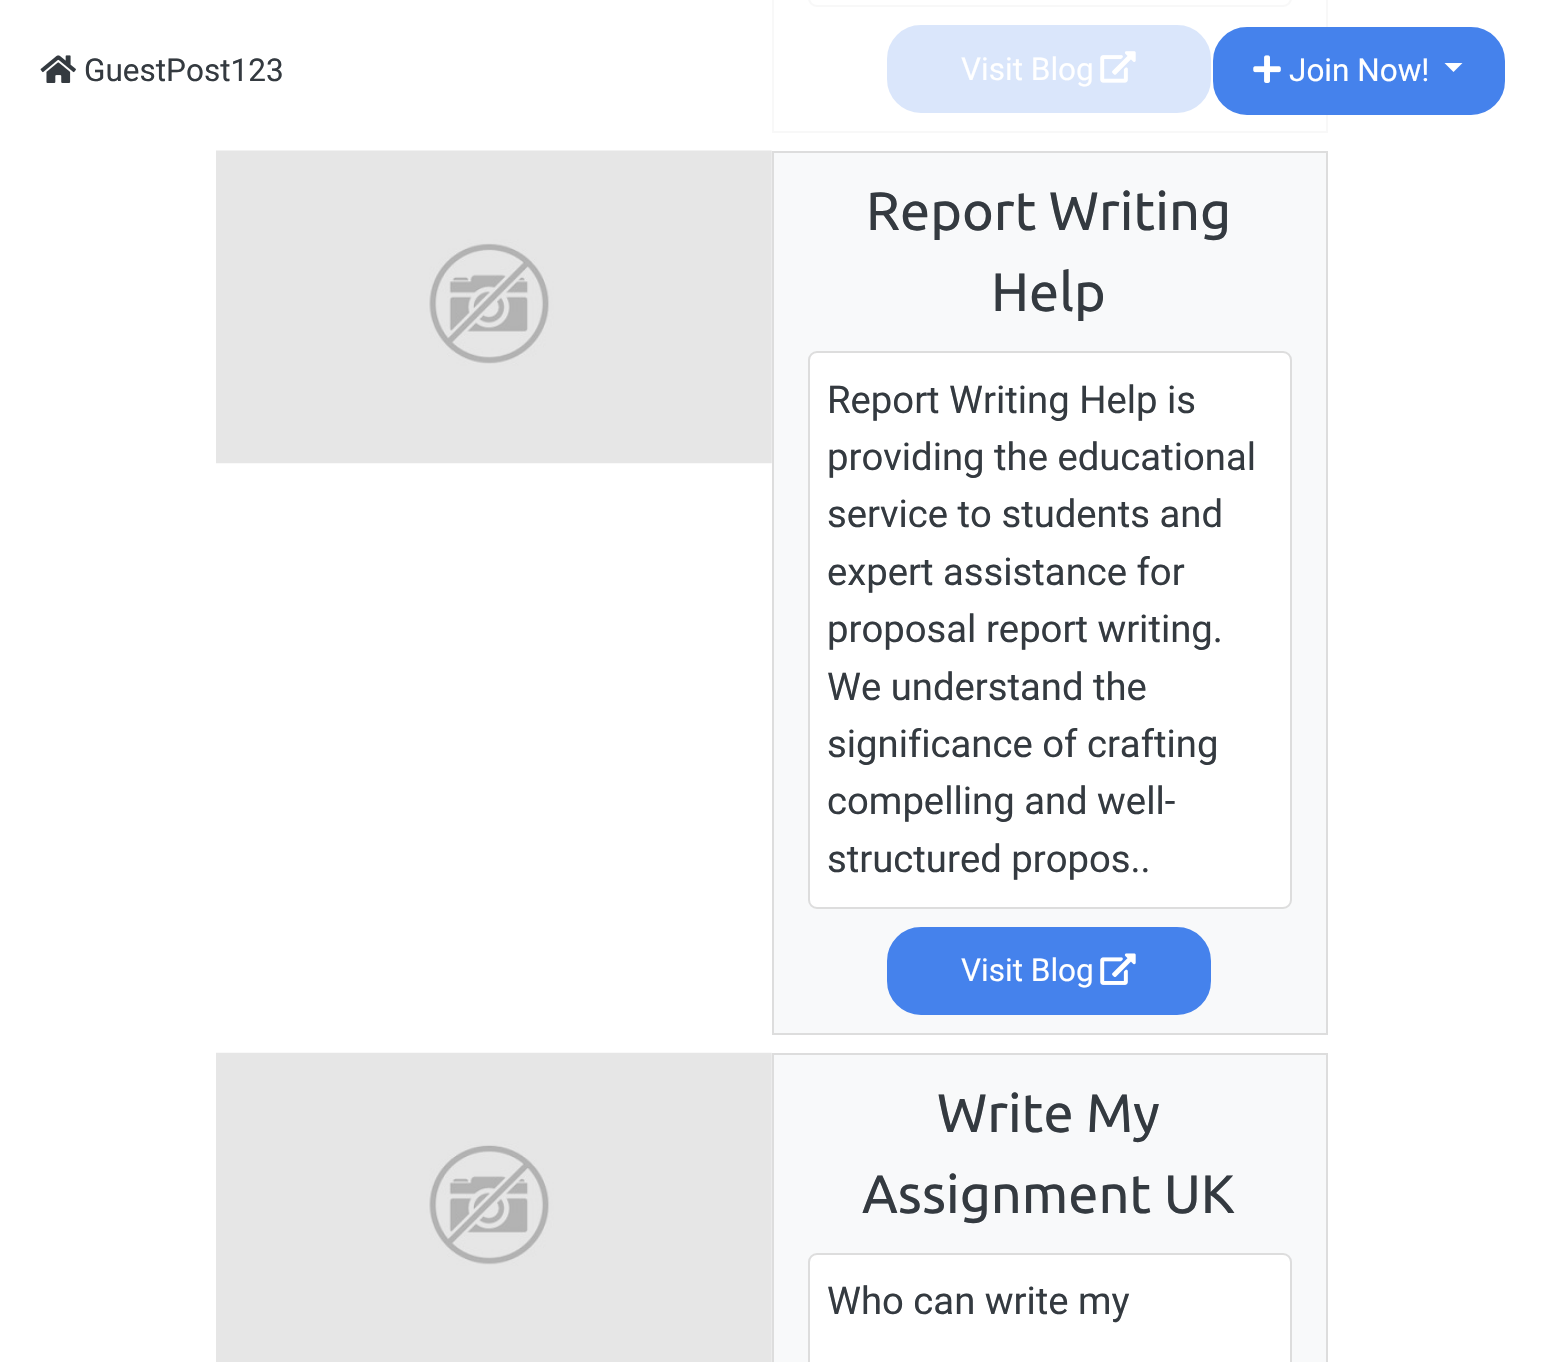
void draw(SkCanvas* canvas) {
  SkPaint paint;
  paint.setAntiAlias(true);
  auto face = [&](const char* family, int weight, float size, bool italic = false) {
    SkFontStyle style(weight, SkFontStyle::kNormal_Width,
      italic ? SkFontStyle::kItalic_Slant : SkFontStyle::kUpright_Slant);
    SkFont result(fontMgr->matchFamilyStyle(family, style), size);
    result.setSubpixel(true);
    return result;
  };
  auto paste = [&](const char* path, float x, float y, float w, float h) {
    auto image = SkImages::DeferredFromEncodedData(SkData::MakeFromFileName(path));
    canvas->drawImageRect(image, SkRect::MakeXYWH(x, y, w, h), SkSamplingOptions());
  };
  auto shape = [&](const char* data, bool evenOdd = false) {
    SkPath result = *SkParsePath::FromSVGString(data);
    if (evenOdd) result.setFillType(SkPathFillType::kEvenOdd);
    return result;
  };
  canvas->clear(0xffffffff);
  paint.setStroke(true);
  paint.setStrokeWidth(2);
  paint.setColor(0xfff8f8f8);
  canvas->drawRect(SkRect::MakeXYWH(773, -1, 554, 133), paint);
  canvas->drawRoundRect(SkRect::MakeXYWH(809, -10, 482, 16), 8, 8, paint);
  paint.setStroke(false);
  paint.setColor(0xffdae6fb);
  canvas->drawRoundRect(SkRect::MakeXYWH(888, 26, 322, 86), 33, 33, paint);
  paint.setStroke(true);
  canvas->drawRoundRect(SkRect::MakeXYWH(888, 26, 322, 86), 33, 33, paint);
  paste("img/1.png", 1100, 51, 36, 32);
  paste("img/2.png", 216, 150, 556, 314);
  paint.setStroke(false);
  paint.setColor(0xfff8f9fa);
  canvas->drawRect(SkRect::MakeXYWH(773, 152, 554, 882), paint);
  paint.setStroke(true);
  paint.setColor(0xffdddddd);
  canvas->drawRect(SkRect::MakeXYWH(773, 152, 554, 882), paint);
  paint.setStroke(false);
  paint.setColor(0xffffffff);
  canvas->drawRoundRect(SkRect::MakeXYWH(809, 352, 482, 556), 8, 8, paint);
  paint.setStroke(true);
  paint.setColor(0xffdddddd);
  canvas->drawRoundRect(SkRect::MakeXYWH(809, 352, 482, 556), 8, 8, paint);
  paint.setStroke(false);
  paint.setColor(0xff4582ec);
  canvas->drawRoundRect(SkRect::MakeXYWH(888, 928, 322, 86), 33, 33, paint);
  paint.setStroke(true);
  canvas->drawRoundRect(SkRect::MakeXYWH(888, 928, 322, 86), 33, 33, paint);
  paste("img/3.png", 1100, 953, 36, 32);
  paste("img/4.png", 216, 1052, 556, 310);
  paint.setStroke(false);
  paint.setColor(0xfff8f9fa);
  canvas->drawRect(SkRect::MakeXYWH(773, 1054, 554, 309), paint);
  paint.setStroke(true);
  paint.setColor(0xffdddddd);
  canvas->drawRect(SkRect::MakeXYWH(773, 1054, 554, 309), paint);
  paint.setStroke(false);
  paint.setColor(0xffffffff);
  canvas->drawRoundRect(SkRect::MakeXYWH(809, 1254, 482, 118), 8, 8, paint);
  paint.setStroke(true);
  paint.setColor(0xffdddddd);
  canvas->drawRoundRect(SkRect::MakeXYWH(809, 1254, 482, 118), 8, 8, paint);
  paste("img/5.png", 40, 55, 36, 28);
  paint.setStroke(false);
  paint.setColor(0xff4582ec);
  canvas->drawRoundRect(SkRect::MakeXYWH(1214, 28, 290, 86), 33, 33, paint);
  paint.setStroke(true);
  canvas->drawRoundRect(SkRect::MakeXYWH(1214, 28, 290, 86), 33, 33, paint);
  paste("img/6.png", 1253, 55, 28, 28);
  paint.setStroke(false);
  paint.setColor(0xffffffff);
  canvas->drawPath(shape("M1444.5 63H1462.5L1453.5 72Z"), paint);
  auto f0 = face("Roboto", 400, 31.5f);
  canvas->drawString("Visit Blog", 961, 80, f0, paint);
  auto f1 = face("Ubuntu", 400, 54);
  paint.setColor(0xff343a40);
  canvas->drawString("Report Writing", 866, 230, f1, paint);
  canvas->drawString("Help", 991, 311, f1, paint);
  auto f2 = face("Roboto", 400, 38.25f);
  {
    const struct { const char* s; float x, y; } items[] = {
      {"Report Writing Help is", 827, 413},
      {"providing the educational", 827, 470},
      {"service to students and", 827, 527},
      {"expert assistance for", 827, 585},
      {"proposal report writing.", 827, 642},
      {"We understand the", 827, 700},
      {"significance of crafting", 827, 757},
      {"compelling and well-", 827, 814},
      {"structured propos..", 827, 872},
    };
    for (auto [s, x, y] : items) {
      canvas->drawString(s, x, y, f2, paint);
    }
  }
  paint.setColor(0xffffffff);
  canvas->drawString("Visit Blog", 961, 981, f0, paint);
  paint.setColor(0xff343a40);
  canvas->drawString("Write My", 937, 1132, f1, paint);
  canvas->drawString("Assignment UK", 862, 1213, f1, paint);
  canvas->drawString("Who can write my", 827, 1314, f2, paint);
  canvas->drawString("GuestPost123", 84, 81, f0, paint);
  paint.setColor(0xffffffff);
  canvas->drawString("Join Now!", 1289, 81, f0, paint);
}
